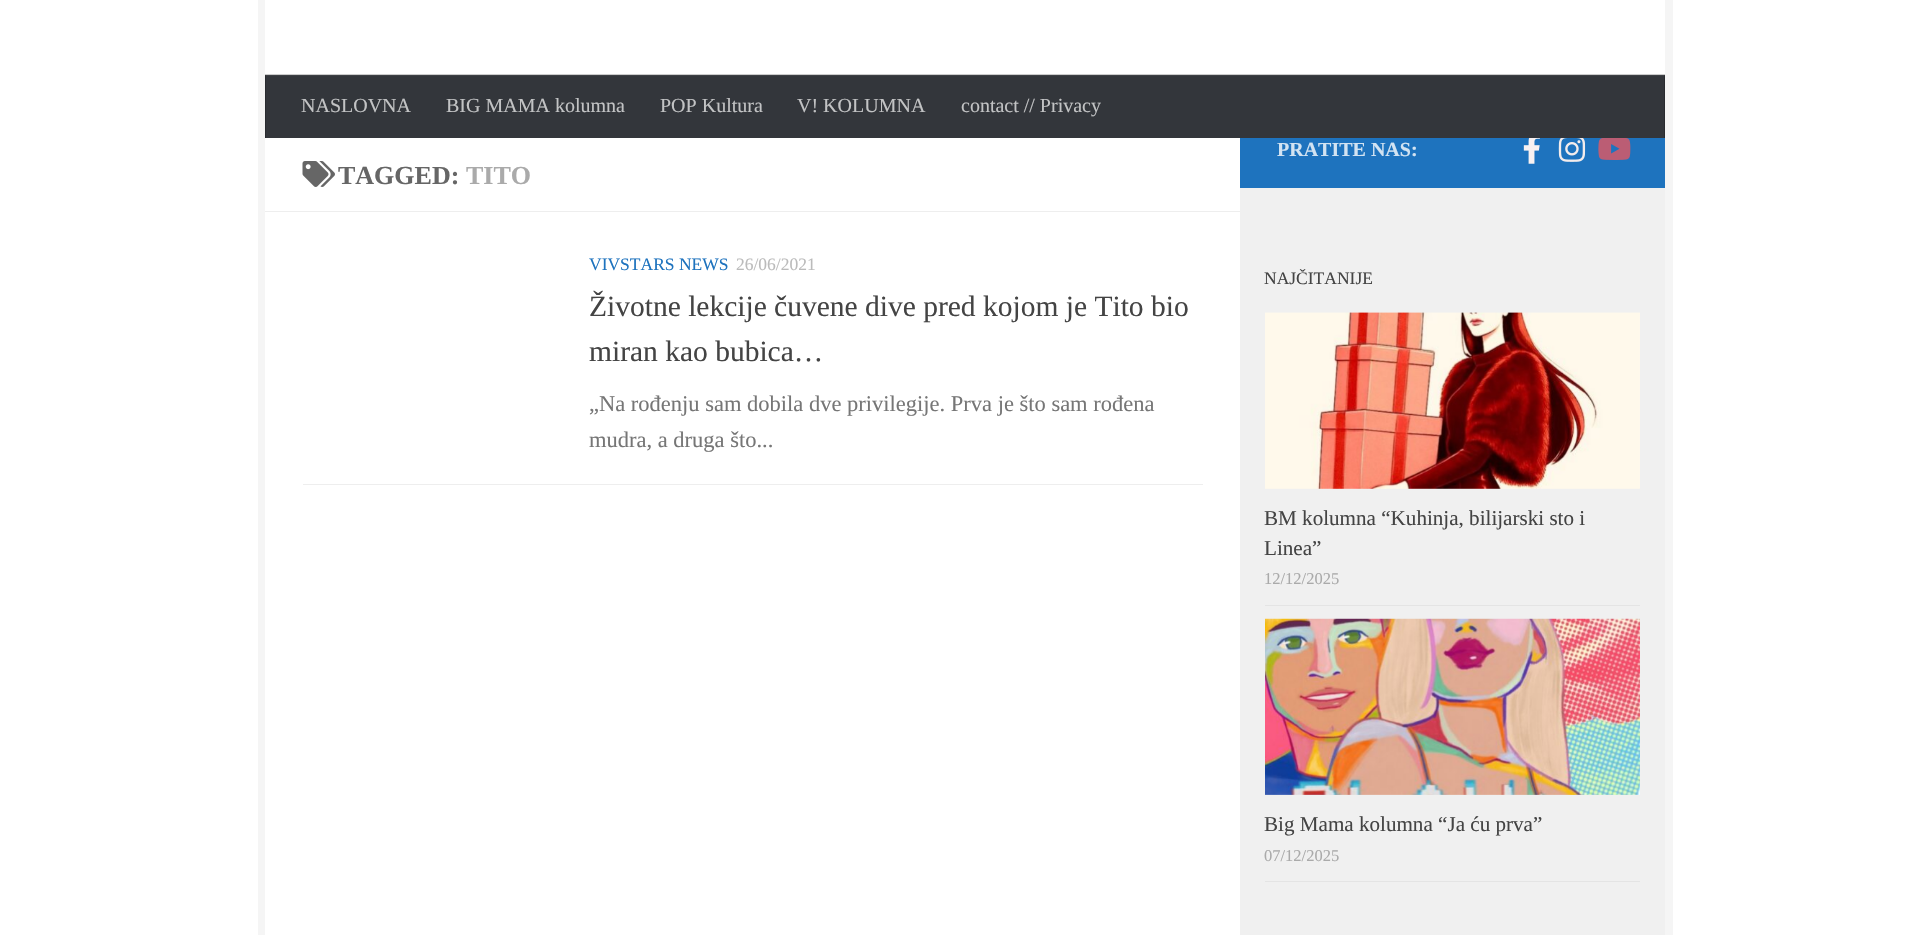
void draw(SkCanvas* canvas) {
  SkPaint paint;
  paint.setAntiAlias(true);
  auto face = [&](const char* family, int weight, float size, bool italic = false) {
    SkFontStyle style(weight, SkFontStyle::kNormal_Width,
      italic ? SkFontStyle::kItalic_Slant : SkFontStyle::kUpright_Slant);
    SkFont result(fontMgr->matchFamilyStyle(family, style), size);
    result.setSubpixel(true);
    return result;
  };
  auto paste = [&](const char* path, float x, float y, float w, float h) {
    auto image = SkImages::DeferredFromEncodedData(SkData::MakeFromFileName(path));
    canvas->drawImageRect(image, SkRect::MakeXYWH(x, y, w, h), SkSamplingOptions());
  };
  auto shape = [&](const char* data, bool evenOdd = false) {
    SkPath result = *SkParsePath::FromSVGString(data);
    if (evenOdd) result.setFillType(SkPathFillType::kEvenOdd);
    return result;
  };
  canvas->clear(0xffffffff);
  paint.setColor(0xfff5f5f5);
  canvas->drawPath(shape("M258-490V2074H1658H265V-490Z"), paint);
  canvas->drawPath(shape("M273 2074H1673V-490H1665V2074Z"), paint);
  {
    const struct { float x, y, w, h; SkColor color; } items[] = {
      {265, 74, 1400, 1, 0xffcccccc},
      {266, 76, 1398, 62, 0xff33363b},
      {265, 75, 1400, 1, 0xff3d4045},
      {1664, 75, 1, 63, 0xff292b2f},
      {1664, 75, 1, 1, 0xff343639},
      {265, 75, 1, 63, 0xff292b2f},
      {265, 75, 1, 1, 0xff343639},
      {265, 211, 975, 1, 0xffeeeeee},
    };
    for (auto [x, y, w, h, color] : items) {
      paint.setColor(color);
      canvas->drawRect(SkRect::MakeXYWH(x, y, w, h), paint);
    }
  }
  paste("img/1.png", 302, 161, 33, 26);
  canvas->drawRect(SkRect::MakeXYWH(303, 484, 900, 1), paint);
  paint.setColor(0xff1e73be);
  canvas->drawRect(SkRect::MakeXYWH(1240, 138, 425, 50), paint);
  paste("img/2.png", 1523, 138, 17, 26);
  paste("img/3.png", 1558, 138, 28, 24);
  paste("img/4.png", 1598, 138, 33, 22);
  paint.setColor(0xfff0f0f0);
  canvas->drawRect(SkRect::MakeXYWH(1240, 188, 425, 747), paint);
  paint.setColor(0xffe4e4e4);
  canvas->drawRect(SkRect::MakeXYWH(1265, 605, 375, 1), paint);
  paste("img/5.png", 1265, 312, 375, 177);
  canvas->drawRect(SkRect::MakeXYWH(1265, 881, 375, 1), paint);
  paste("img/6.png", 1265, 618, 375, 177);
  auto f0 = face("Liberation Serif", 400, 20);
  paint.setColor(0xffc2c3c4);
  {
    const struct { const char* s; float x, y; } items[] = {
      {"NASLOVNA", 301, 112},
      {"BIG MAMA kolumna", 446, 112},
      {"POP Kultura", 660, 112},
      {"V! KOLUMNA", 797, 112},
      {"contact // Privacy", 961, 112},
    };
    for (auto [s, x, y] : items) {
      canvas->drawString(s, x, y, f0, paint);
    }
  }
  auto f1 = face("Liberation Serif", 700, 26);
  paint.setColor(0xff666666);
  canvas->drawString("TAGGED:", 338, 184, f1, paint);
  paint.setColor(0xffaaaaaa);
  canvas->drawString("TITO", 466, 184, f1, paint);
  auto f2 = face("Liberation Serif", 400, 17.5f);
  paint.setColor(0xff1e73be);
  canvas->drawString("VIVSTARS NEWS", 589, 270, f2, paint);
  paint.setColor(0xffbbbbbb);
  canvas->drawString("26/06/2021", 736, 270, f2, paint);
  auto f3 = face("Liberation Serif", 400, 29.5f);
  paint.setColor(0xff444444);
  canvas->drawString("Životne lekcije čuvene dive pred kojom je Tito bio", 589, 316, f3, paint);
  canvas->drawString("miran kao bubica…", 589, 361, f3, paint);
  auto f4 = face("Liberation Serif", 400, 22.5f);
  paint.setColor(0xff767676);
  canvas->drawString("„Na rođenju sam dobila dve privilegije. Prva je što sam rođena", 589, 411, f4, paint);
  canvas->drawString("mudra, a druga što...", 589, 447, f4, paint);
  auto f5 = face("Liberation Serif", 700, 20);
  paint.setColor(0xffd2e3f2);
  canvas->drawString("PRATITE NAS:", 1277, 156, f5, paint);
  paint.setColor(0xff444444);
  canvas->drawString("NAJČITANIJE", 1264, 284, f2, paint);
  auto f6 = face("Liberation Serif", 400, 21.1f);
  canvas->drawString("BM kolumna “Kuhinja, bilijarski sto i", 1264, 525, f6, paint);
  canvas->drawString("Linea”", 1264, 555, f6, paint);
  auto f7 = face("Liberation Serif", 400, 16.5f);
  paint.setColor(0xffaaaaaa);
  canvas->drawString("12/12/2025", 1264, 584, f7, paint);
  paint.setColor(0xff444444);
  canvas->drawString("Big Mama kolumna “Ja ću prva”", 1264, 831, f6, paint);
  paint.setColor(0xffaaaaaa);
  canvas->drawString("07/12/2025", 1264, 861, f7, paint);
}
